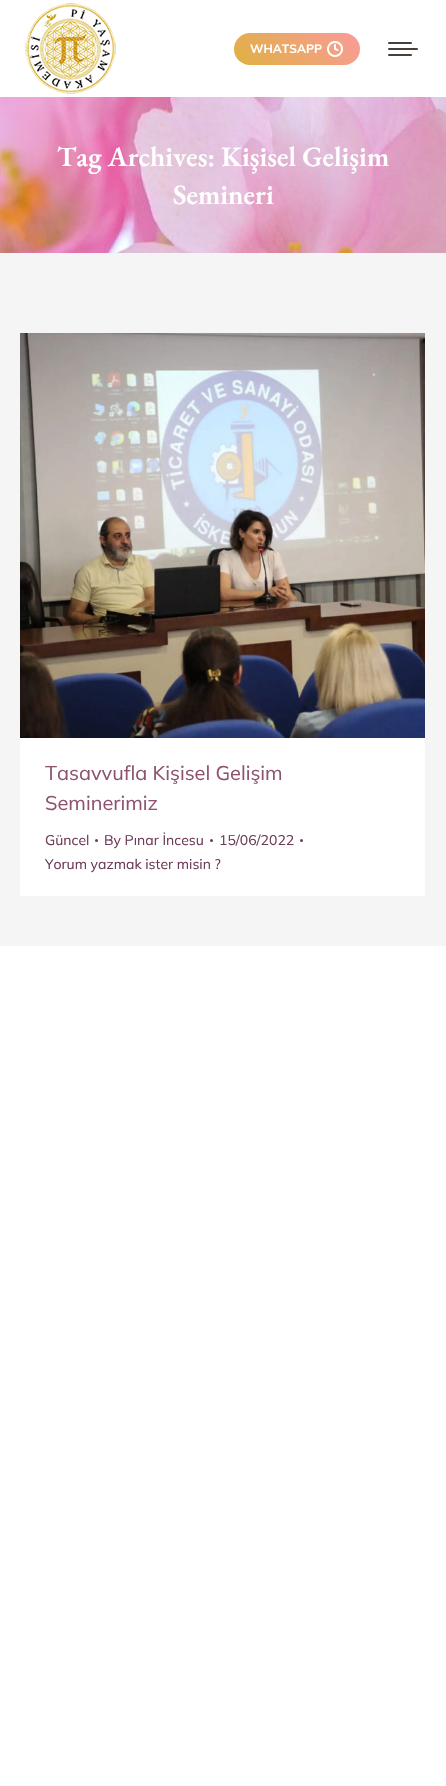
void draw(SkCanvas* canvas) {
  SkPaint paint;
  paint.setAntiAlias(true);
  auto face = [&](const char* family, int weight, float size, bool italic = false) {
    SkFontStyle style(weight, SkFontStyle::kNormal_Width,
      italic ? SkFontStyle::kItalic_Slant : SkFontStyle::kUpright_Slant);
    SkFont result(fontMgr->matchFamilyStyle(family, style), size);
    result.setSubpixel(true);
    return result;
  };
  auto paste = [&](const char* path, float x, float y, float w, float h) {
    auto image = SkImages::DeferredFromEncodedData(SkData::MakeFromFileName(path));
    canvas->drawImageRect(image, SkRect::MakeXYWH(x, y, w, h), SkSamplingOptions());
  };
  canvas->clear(0xffffffff);
  paste("img/1.png", 25, 3, 91, 91);
  {
    const SkColor colors[] = {0xffdfb141, 0xfffa9b9a};
    const float stops[] = {0, 1};
    const SkPoint ends[] = {{258, 89}, {337, 10}};
    paint.setShader(SkGradientShader::MakeLinear(ends, colors, stops, 2, SkTileMode::kClamp));
    paint.setAlpha(255);
  }
  canvas->drawRoundRect(SkRect::MakeXYWH(234, 33, 126, 32), 16, 16, paint);
  paste("img/2.png", 327, 41, 16, 16);
  paint.setShader(nullptr);
  paint.setColor(0xff46403d);
  canvas->drawRoundRect(SkRect::MakeXYWH(388, 42, 24, 2), 1, 1, paint);
  canvas->drawRoundRect(SkRect::MakeXYWH(388, 48, 30, 2), 1, 1, paint);
  canvas->drawRoundRect(SkRect::MakeXYWH(388, 54, 24, 2), 1, 1, paint);
  paint.setColor(0xfff5f5f5);
  canvas->drawRect(SkRect::MakeXYWH(0, 253, 446, 693), paint);
  paste("img/3.png", 0, 97, 446, 156);
  paint.setColor(0xffffffff);
  canvas->drawRect(SkRect::MakeXYWH(20, 738, 405, 158), paint);
  paste("img/4.png", 20, 333, 405, 405);
  paint.setColor(0xff6d3b58);
  canvas->drawCircle(96.5f, 840.5f, 1.5f, paint);
  canvas->drawCircle(211.5f, 840.5f, 1.5f, paint);
  canvas->drawCircle(301.5f, 840.5f, 1.5f, paint);
  auto f0 = face("Mulish", 700, 12);
  paint.setColor(0xffffffff);
  canvas->drawString("WHATSAPP", 250, 53, f0, paint);
  auto f1 = face("EB Garamond", 600, 28);
  canvas->drawString("Tag Archives: Kişisel Gelişim", 57, 166, f1, paint);
  canvas->drawString("Semineri", 173, 204, f1, paint);
  auto f2 = face("Mulish", 400, 20);
  paint.setColor(0xff8e526f);
  canvas->drawString("Tasavvufla Kişisel Gelişim", 45, 780, f2, paint);
  canvas->drawString("Seminerimiz", 45, 810, f2, paint);
  auto f3 = face("Mulish", 400, 14);
  paint.setColor(0xff6d3b58);
  {
    const struct { const char* s; float x, y; } items[] = {
      {"Güncel", 45, 845},
      {"By Pınar İncesu", 104, 845},
      {"15/06/2022", 219, 845},
      {"Yorum yazmak ister misin ?", 45, 869},
    };
    for (auto [s, x, y] : items) {
      canvas->drawString(s, x, y, f3, paint);
    }
  }
}
